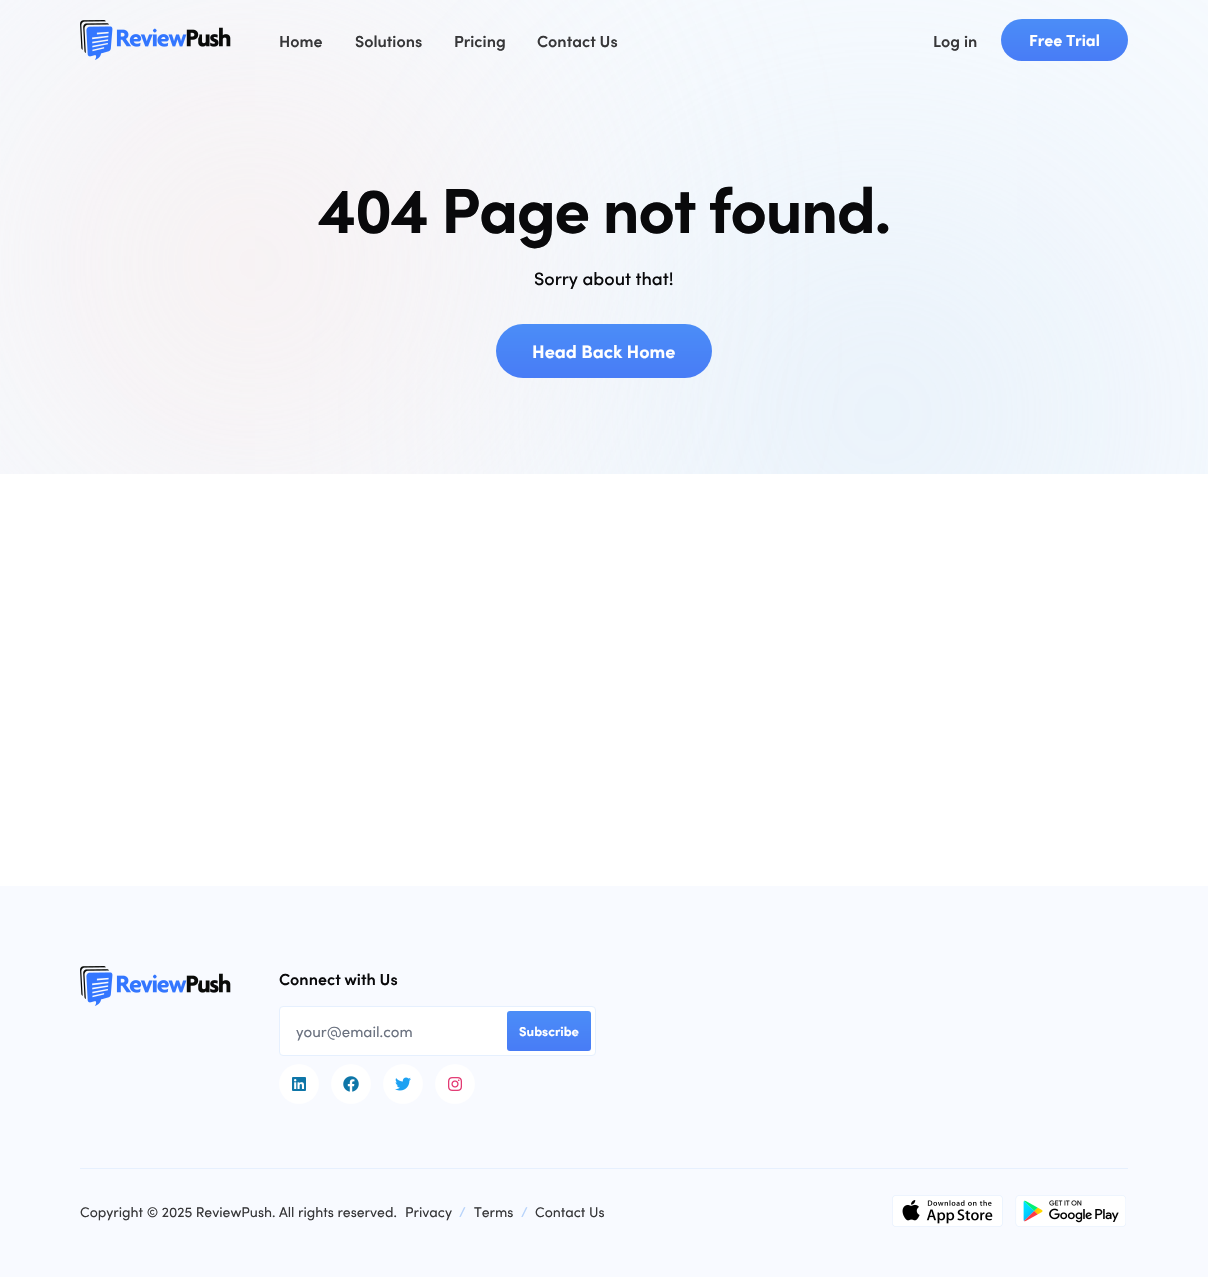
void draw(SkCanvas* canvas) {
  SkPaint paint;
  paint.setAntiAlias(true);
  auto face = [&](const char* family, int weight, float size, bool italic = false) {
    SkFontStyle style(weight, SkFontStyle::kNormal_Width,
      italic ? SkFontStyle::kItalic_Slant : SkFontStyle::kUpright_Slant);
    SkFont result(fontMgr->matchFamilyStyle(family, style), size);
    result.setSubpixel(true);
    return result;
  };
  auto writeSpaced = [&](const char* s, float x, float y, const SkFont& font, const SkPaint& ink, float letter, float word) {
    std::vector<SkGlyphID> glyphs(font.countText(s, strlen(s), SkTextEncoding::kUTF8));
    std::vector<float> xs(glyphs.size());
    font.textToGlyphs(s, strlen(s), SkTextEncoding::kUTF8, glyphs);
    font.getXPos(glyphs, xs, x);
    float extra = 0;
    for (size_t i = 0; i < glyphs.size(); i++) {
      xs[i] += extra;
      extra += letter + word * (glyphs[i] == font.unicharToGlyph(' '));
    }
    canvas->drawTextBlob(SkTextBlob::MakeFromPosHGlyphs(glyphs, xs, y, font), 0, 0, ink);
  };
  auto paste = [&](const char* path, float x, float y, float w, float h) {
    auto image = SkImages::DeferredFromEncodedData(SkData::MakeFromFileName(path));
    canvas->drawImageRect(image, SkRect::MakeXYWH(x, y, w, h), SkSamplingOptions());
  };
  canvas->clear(0xffffffff);
  paste("img/2.png", 0, 0, 1208, 474);
  paste("img/1.png", 80, 20, 151, 40);
  {
    const SkColor colors[] = {0xff4b8df7, 0xff487cf6};
    const float stops[] = {0, 1};
    const SkPoint ends[] = {{1065, 19}, {1065, 61}};
    paint.setShader(SkGradientShader::MakeLinear(ends, colors, stops, 2, SkTileMode::kClamp));
    paint.setAlpha(255);
  }
  canvas->drawRoundRect(SkRect::MakeXYWH(1001, 19, 127, 42), 21, 21, paint);
  {
    const SkColor colors[] = {0xff4b8df7, 0xff487cf6};
    const float stops[] = {0, 1};
    const SkPoint ends[] = {{604, 324}, {604, 378}};
    paint.setShader(SkGradientShader::MakeLinear(ends, colors, stops, 2, SkTileMode::kClamp));
    paint.setAlpha(255);
  }
  canvas->drawRoundRect(SkRect::MakeXYWH(496, 324, 216, 54), 27, 27, paint);
  paint.setShader(nullptr);
  paint.setColor(0xfff8faff);
  canvas->drawRect(SkRect::MakeXYWH(0, 886, 1208, 391), paint);
  paste("img/3.png", 80, 966, 151, 40);
  paint.setColor(0xffffffff);
  canvas->drawRoundRect(SkRect::MakeXYWH(279.5f, 1006.5f, 316, 49), 3.5f, 3.5f, paint);
  paint.setStroke(true);
  paint.setStrokeWidth(1);
  paint.setColor(0xffe6f0fe);
  canvas->drawRoundRect(SkRect::MakeXYWH(279.5f, 1006.5f, 316, 49), 3.5f, 3.5f, paint);
  paint.setStroke(false);
  {
    const SkColor colors[] = {0xff4b8df7, 0xff487cf6};
    const float stops[] = {0, 1};
    const SkPoint ends[] = {{549, 1011}, {549, 1051}};
    paint.setShader(SkGradientShader::MakeLinear(ends, colors, stops, 2, SkTileMode::kClamp));
    paint.setAlpha(255);
  }
  canvas->drawRoundRect(SkRect::MakeXYWH(507, 1011, 84, 40), 3, 3, paint);
  paint.setShader(nullptr);
  paint.setColor(0xffffffff);
  canvas->drawCircle(299, 1084, 20, paint);
  paste("img/4.png", 292, 1077, 14, 14);
  canvas->drawCircle(351, 1084, 20, paint);
  paste("img/5.png", 343, 1076, 16, 16);
  canvas->drawCircle(403, 1084, 20, paint);
  paste("img/6.png", 395, 1077, 16, 14);
  canvas->drawCircle(455, 1084, 20, paint);
  paste("img/7.png", 448, 1077, 14, 14);
  paint.setColor(0xffe6f0fe);
  canvas->drawRect(SkRect::MakeXYWH(80, 1168, 1048, 1), paint);
  paste("img/8.png", 892, 1195, 111, 32);
  paste("img/9.png", 1015, 1195, 111, 32);
  auto f0 = face("Sofia", 600, 16);
  paint.setColor(0xff373739);
  {
    const struct { const char* s; float x, y; } items[] = {
      {"Home", 279, 47},
      {"Solutions", 355, 47},
      {"Pricing", 454, 47},
      {"Contact Us", 537, 47},
      {"Log in", 933, 47},
    };
    for (auto [s, x, y] : items) {
      canvas->drawString(s, x, y, f0, paint);
    }
  }
  auto f1 = face("Sofia", 700, 16);
  paint.setColor(0xffffffff);
  canvas->drawString("Free Trial", 1029, 46, f1, paint);
  auto f2 = face("Sofia", 700, 64);
  paint.setColor(0xff09090b);
  writeSpaced("404 Page not found.", 318, 233, f2, paint, -1.6f, 0);
  auto f3 = face("Sofia", 500, 18);
  canvas->drawString("Sorry about that!", 534, 285, f3, paint);
  auto f4 = face("Sofia", 700, 18);
  paint.setColor(0xffffffff);
  canvas->drawString("Head Back Home", 532, 358, f4, paint);
  paint.setColor(0xff09090b);
  canvas->drawString("Connect with Us", 279, 985, f0, paint);
  auto f5 = face("Sofia", 400, 15);
  paint.setColor(0xff6b7280);
  canvas->drawString("your@email.com", 296, 1037, f5, paint);
  auto f6 = face("Sofia", 700, 13);
  paint.setColor(0xffffffff);
  canvas->drawString("Subscribe", 519, 1036, f6, paint);
  auto f7 = face("Sofia", 400, 14);
  paint.setColor(0xff373739);
  canvas->drawString("Copyright © 2025 ReviewPush. All rights reserved.", 80, 1217, f7, paint);
  canvas->drawString("Privacy", 405, 1217, f7, paint);
  paint.setColor(0xffb5d2fb);
  canvas->drawString("/", 459, 1217, f7, paint);
  paint.setColor(0xff373739);
  canvas->drawString("Terms", 474, 1217, f7, paint);
  paint.setColor(0xffb5d2fb);
  canvas->drawString("/", 521, 1217, f7, paint);
  paint.setColor(0xff373739);
  canvas->drawString("Contact Us", 535, 1217, f7, paint);
}
